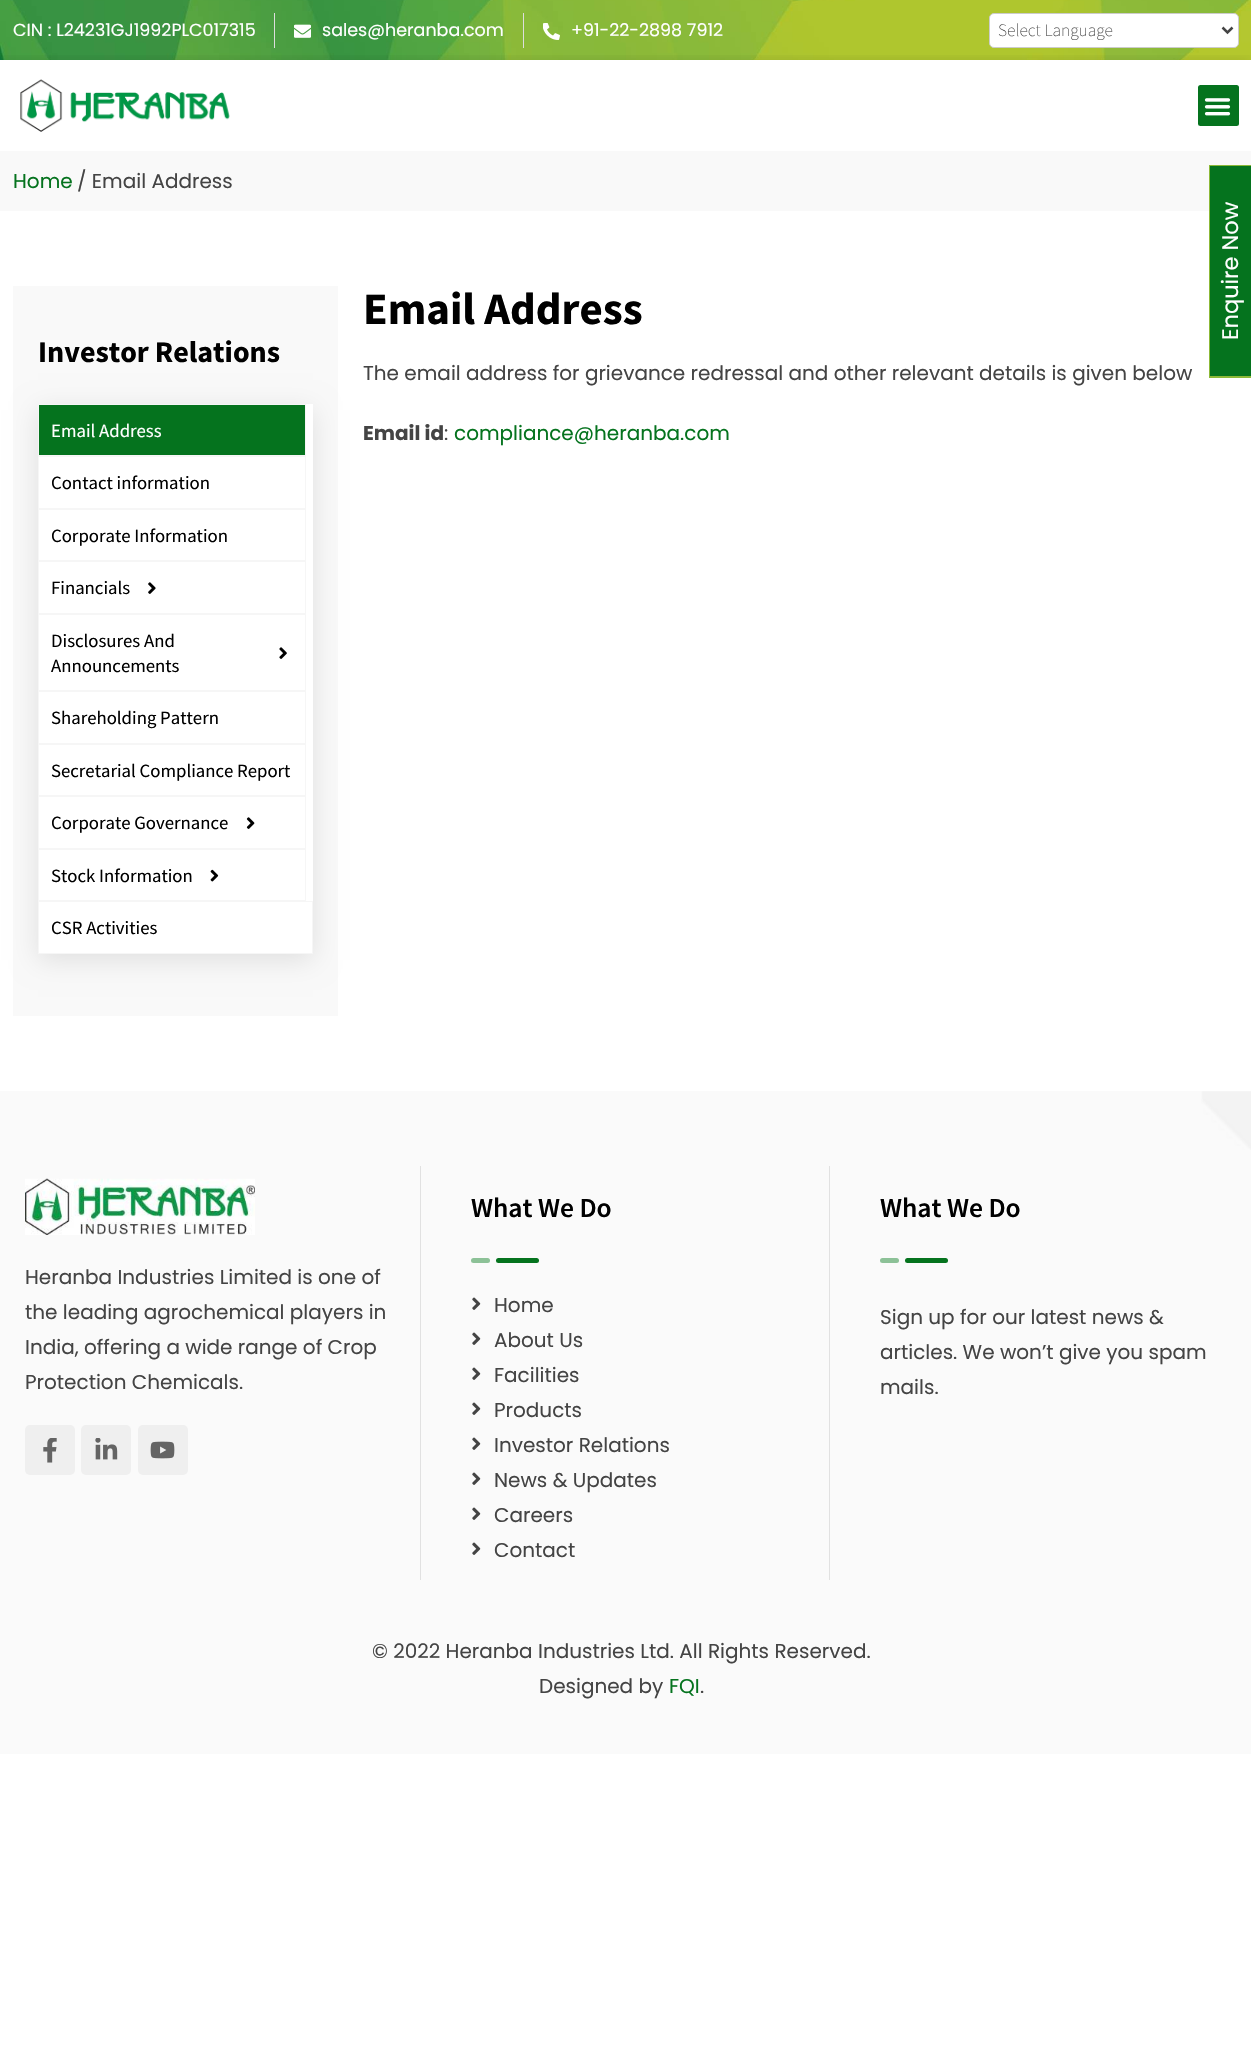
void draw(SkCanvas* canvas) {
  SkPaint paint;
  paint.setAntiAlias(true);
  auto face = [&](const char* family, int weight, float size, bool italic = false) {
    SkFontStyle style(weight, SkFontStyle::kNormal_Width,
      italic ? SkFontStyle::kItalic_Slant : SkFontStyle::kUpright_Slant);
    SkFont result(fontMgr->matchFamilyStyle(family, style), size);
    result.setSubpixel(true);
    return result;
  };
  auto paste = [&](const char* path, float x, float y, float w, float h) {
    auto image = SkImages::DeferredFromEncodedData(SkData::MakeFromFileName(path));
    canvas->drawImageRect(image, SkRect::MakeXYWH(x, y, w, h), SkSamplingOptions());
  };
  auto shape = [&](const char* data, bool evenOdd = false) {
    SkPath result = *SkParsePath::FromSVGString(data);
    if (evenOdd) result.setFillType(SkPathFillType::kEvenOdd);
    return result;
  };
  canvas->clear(0xffffffff);
  paint.setColor(0xfffafafa);
  canvas->drawRect(SkRect::MakeXYWH(0, 1091, 1251, 663), paint);
  paste("img/1.png", 0, 0, 1251, 60);
  paint.setColor(0xffdddddd);
  canvas->drawRect(SkRect::MakeXYWH(274, 13, 1, 35), paint);
  paste("img/2.png", 294, 24, 17, 14);
  canvas->drawRect(SkRect::MakeXYWH(523, 13, 1, 35), paint);
  paste("img/3.png", 543, 23, 17, 17);
  paint.setColor(0xffffffff);
  canvas->drawRoundRect(SkRect::MakeXYWH(989.5f, 13.5f, 249, 34), 4.5f, 4.5f, paint);
  paint.setStroke(true);
  paint.setStrokeWidth(1);
  paint.setColor(0xffcccccc);
  canvas->drawRoundRect(SkRect::MakeXYWH(989.5f, 13.5f, 249, 34), 4.5f, 4.5f, paint);
  paint.setStrokeWidth(2.5f);
  paint.setColor(0xff444444);
  canvas->drawPath(shape("M1222.5 27.5L1227.5 32.5L1232.5 27.5"), paint);
  canvas->save();
  canvas->clipRect(SkRect::MakeXYWH(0, 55, 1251, 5));
  paint.setStroke(false);
  paint.setColor(0x1a000000);
  paint.setMaskFilter(SkMaskFilter::MakeBlur(kNormal_SkBlurStyle, 6));
  canvas->drawRect(SkRect::MakeXYWH(0, 60, 1251, 91), paint);
  paint.setMaskFilter(nullptr);
  canvas->restore();
  paste("img/4.png", 20, 79, 210, 53);
  paint.setColor(0xff05731e);
  canvas->drawRoundRect(SkRect::MakeXYWH(1198, 85, 41, 41), 2.5f, 2.5f, paint);
  paste("img/5.png", 1204, 98, 27, 18);
  {
    const struct { float x, y, w, h; SkColor color; } items[] = {
      {0, 151, 1251, 60, 0xfff9f9f9},
      {1210, 166, 41, 210, 0xff05731e},
      {1209, 165, 1, 213, 0xff8cb938},
      {1209, 165, 42, 1, 0xff8cb938},
      {1209, 376, 42, 2, 0xff8cb938},
      {13, 286, 325, 730, 0xfff9f9f9},
    };
    for (auto [x, y, w, h, color] : items) {
      paint.setColor(color);
      canvas->drawRect(SkRect::MakeXYWH(x, y, w, h), paint);
    }
  }
  paint.setColor(0x1a000000);
  paint.setMaskFilter(SkMaskFilter::MakeBlur(kNormal_SkBlurStyle, 12.5f));
  canvas->drawRect(SkRect::MakeXYWH(38, 410, 275, 550), paint);
  paint.setMaskFilter(nullptr);
  paint.setColor(0xffffffff);
  canvas->drawRect(SkRect::MakeXYWH(39, 404, 274, 549), paint);
  paint.setStroke(true);
  paint.setStrokeWidth(1);
  paint.setColor(0xfff6f6f6);
  canvas->drawRect(SkRect::MakeXYWH(38.5f, 404.5f, 267, 51), paint);
  paint.setStroke(false);
  paint.setColor(0xff05731e);
  canvas->drawRect(SkRect::MakeXYWH(39, 405, 266, 50), paint);
  paint.setStroke(true);
  paint.setColor(0xfff6f6f6);
  canvas->drawRect(SkRect::MakeXYWH(38.5f, 456.5f, 267, 52), paint);
  canvas->drawRect(SkRect::MakeXYWH(38.5f, 509.5f, 267, 51), paint);
  canvas->drawRect(SkRect::MakeXYWH(38.5f, 561.5f, 267, 52), paint);
  paste("img/6.png", 148, 582, 8, 12);
  canvas->drawRect(SkRect::MakeXYWH(38.5f, 614.5f, 267, 76), paint);
  paste("img/7.png", 279, 647, 8, 12);
  canvas->drawRect(SkRect::MakeXYWH(38.5f, 691.5f, 267, 52), paint);
  canvas->drawRect(SkRect::MakeXYWH(38.5f, 744.5f, 267, 51), paint);
  canvas->drawRect(SkRect::MakeXYWH(38.5f, 796.5f, 267, 52), paint);
  paste("img/8.png", 246, 817, 9, 12);
  canvas->drawRect(SkRect::MakeXYWH(38.5f, 849.5f, 267, 51), paint);
  paste("img/9.png", 210, 869, 9, 13);
  canvas->drawRect(SkRect::MakeXYWH(38.5f, 901.5f, 274, 52), paint);
  paste("img/10.png", 1201, 1091, 50, 59);
  paint.setStroke(false);
  paint.setColor(0xffe1e1e1);
  canvas->drawRect(SkRect::MakeXYWH(420, 1166, 1, 414), paint);
  paste("img/11.png", 25, 1178, 230, 57);
  paint.setColor(0xffefefef);
  canvas->drawRoundRect(SkRect::MakeXYWH(25, 1425, 50, 50), 5, 5, paint);
  paste("img/12.png", 43, 1438, 14, 25);
  canvas->drawRoundRect(SkRect::MakeXYWH(81, 1425, 50, 50), 5, 5, paint);
  paste("img/13.png", 95, 1438, 23, 22);
  canvas->drawRoundRect(SkRect::MakeXYWH(138, 1425, 50, 50), 5, 5, paint);
  paste("img/14.png", 150, 1441, 25, 18);
  paint.setColor(0xffe1e1e1);
  canvas->drawRect(SkRect::MakeXYWH(829, 1166, 1, 414), paint);
  paint.setColor(0xff8cc197);
  canvas->drawRoundRect(SkRect::MakeXYWH(471, 1258, 19, 5), 2.5f, 2.5f, paint);
  paint.setColor(0xff05731e);
  canvas->drawRoundRect(SkRect::MakeXYWH(496, 1258, 43, 5), 2.5f, 2.5f, paint);
  paste("img/15.png", 472, 1297, 9, 13);
  paste("img/15.png", 472, 1332, 9, 13);
  paste("img/15.png", 472, 1367, 9, 13);
  paste("img/15.png", 472, 1402, 9, 13);
  paste("img/15.png", 472, 1437, 9, 13);
  paste("img/15.png", 472, 1472, 9, 13);
  paste("img/15.png", 472, 1507, 9, 13);
  paste("img/15.png", 472, 1542, 9, 13);
  paint.setColor(0xff8cc197);
  canvas->drawRoundRect(SkRect::MakeXYWH(880, 1258, 19, 5), 2.5f, 2.5f, paint);
  paint.setColor(0xff05731e);
  canvas->drawRoundRect(SkRect::MakeXYWH(905, 1258, 43, 5), 2.5f, 2.5f, paint);
  auto f0 = face("Poppins", 400, 17.5f);
  paint.setColor(0xffffffff);
  {
    const struct { const char* s; float x, y; } items[] = {
      {"CIN : L24231GJ1992PLC017315", 13, 36},
      {"sales@heranba.com", 322, 36},
      {"+91-22-2898 7912", 571, 36},
    };
    for (auto [s, x, y] : items) {
      canvas->drawString(s, x, y, f0, paint);
    }
  }
  auto f1 = face("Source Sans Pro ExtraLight", 200, 17.5f);
  paint.setColor(0xff444444);
  canvas->drawString("Select Language", 998, 36, f1, paint);
  auto f2 = face("Poppins", 400, 20);
  paint.setColor(0xff05731e);
  canvas->drawString("Home", 13, 188, f2, paint);
  paint.setColor(0xff444444);
  canvas->drawString("/ Email Address", 77, 188, f2, paint);
  auto f3 = face("Poppins", 400, 22.5f);
  paint.setColor(0xffffffff);
  canvas->save();
  canvas->rotate(-90, 1238, 340);
  canvas->drawString("Enquire Now", 1238, 340, f3, paint);
  canvas->restore();
  auto f4 = face("Source Sans Pro", 700, 30);
  paint.setColor(0xff000000);
  canvas->drawString("Investor Relations", 38, 362, f4, paint);
  auto f5 = face("Source Sans Pro", 400, 18.75f);
  paint.setColor(0xffffffff);
  canvas->drawString("Email Address", 51, 437, f5, paint);
  paint.setColor(0xff000000);
  {
    const struct { const char* s; float x, y; } items[] = {
      {"Contact information", 51, 489},
      {"Corporate Information", 51, 542},
      {"Financials", 51, 594},
      {"Disclosures And", 51, 647},
      {"Announcements", 51, 672},
      {"Shareholding Pattern", 51, 724},
      {"Secretarial Compliance Report", 51, 777},
      {"Corporate Governance", 51, 829},
      {"Stock Information", 51, 882},
      {"CSR Activities", 51, 934},
    };
    for (auto [s, x, y] : items) {
      canvas->drawString(s, x, y, f5, paint);
    }
  }
  auto f6 = face("Source Sans Pro", 700, 45);
  canvas->drawString("Email Address", 363, 324, f6, paint);
  paint.setColor(0xff444444);
  canvas->drawString("The email address for grievance redressal and other relevant details is given below", 363, 380, f2, paint);
  auto f7 = face("Poppins", 700, 20);
  canvas->drawString("Email id", 363, 440, f7, paint);
  canvas->drawString(":", 444, 440, f2, paint);
  paint.setColor(0xff05731e);
  canvas->drawString("compliance@heranba.com", 454, 440, f2, paint);
  paint.setColor(0xff444444);
  {
    const struct { const char* s; float x, y; } items[] = {
      {"Heranba Industries Limited is one of", 25, 1284},
      {"the leading agrochemical players in", 25, 1319},
      {"India, offering a wide range of Crop", 25, 1354},
      {"Protection Chemicals.", 25, 1389},
    };
    for (auto [s, x, y] : items) {
      canvas->drawString(s, x, y, f2, paint);
    }
  }
  auto f8 = face("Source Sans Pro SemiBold", 600, 27.5f);
  paint.setColor(0xff000000);
  canvas->drawString("What We Do", 471, 1217, f8, paint);
  paint.setColor(0xff444444);
  {
    const struct { const char* s; float x, y; } items[] = {
      {"Home", 494, 1312},
      {"About Us", 494, 1347},
      {"Facilities", 494, 1382},
      {"Products", 494, 1417},
      {"Investor Relations", 494, 1452},
      {"News & Updates", 494, 1487},
      {"Careers", 494, 1522},
      {"Contact", 494, 1557},
    };
    for (auto [s, x, y] : items) {
      canvas->drawString(s, x, y, f2, paint);
    }
  }
  paint.setColor(0xff000000);
  canvas->drawString("What We Do", 880, 1217, f8, paint);
  paint.setColor(0xff444444);
  {
    const struct { const char* s; float x, y; } items[] = {
      {"Sign up for our latest news &", 880, 1324},
      {"articles. We won’t give you spam", 880, 1359},
      {"mails.", 880, 1394},
      {"© 2022 Heranba Industries Ltd. All Rights Reserved.", 372, 1658},
      {"Designed by", 539, 1693},
    };
    for (auto [s, x, y] : items) {
      canvas->drawString(s, x, y, f2, paint);
    }
  }
  paint.setColor(0xff05731e);
  canvas->drawString("FQI", 669, 1693, f2, paint);
  paint.setColor(0xff444444);
  canvas->drawString(".", 700, 1693, f2, paint);
}
